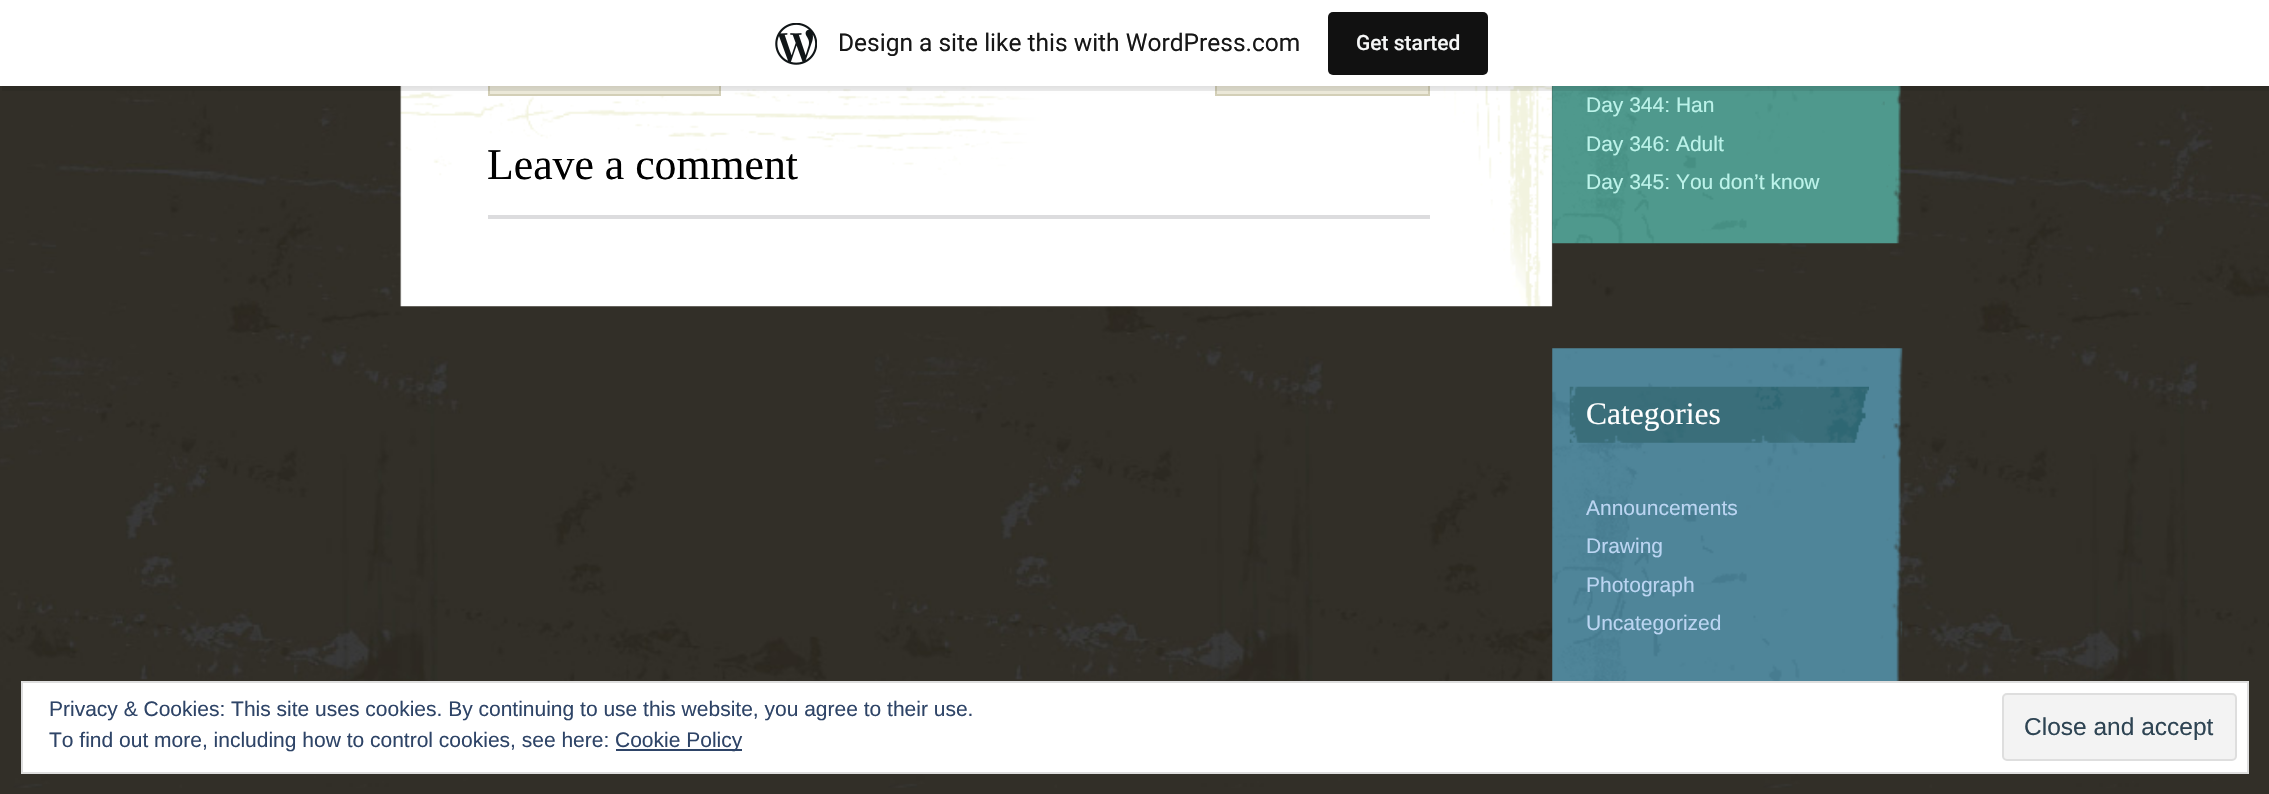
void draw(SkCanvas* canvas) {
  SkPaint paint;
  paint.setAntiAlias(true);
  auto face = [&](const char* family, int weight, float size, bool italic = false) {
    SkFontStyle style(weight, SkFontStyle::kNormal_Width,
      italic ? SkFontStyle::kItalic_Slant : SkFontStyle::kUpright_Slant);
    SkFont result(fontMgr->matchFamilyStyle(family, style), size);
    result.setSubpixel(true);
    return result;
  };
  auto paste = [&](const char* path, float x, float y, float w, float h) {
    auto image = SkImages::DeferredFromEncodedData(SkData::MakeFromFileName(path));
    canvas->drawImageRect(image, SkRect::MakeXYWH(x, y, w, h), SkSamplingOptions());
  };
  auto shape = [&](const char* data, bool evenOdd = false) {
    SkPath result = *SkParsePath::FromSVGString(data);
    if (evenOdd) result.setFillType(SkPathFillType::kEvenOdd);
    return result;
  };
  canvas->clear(0xff322f28);
  paste("img/1.png", 0, 86, 2269, 702);
  paste("img/3.png", 400, 86, 1153, 221);
  paint.setColor(0xffece9d9);
  canvas->drawRect(SkRect::MakeXYWH(490, 86, 229, 8), paint);
  paint.setStroke(true);
  paint.setStrokeWidth(2);
  paint.setColor(0xffd3cfb7);
  canvas->drawRect(SkRect::MakeXYWH(489, 45, 231, 50), paint);
  paint.setStroke(false);
  paint.setColor(0xffece9d9);
  canvas->drawRect(SkRect::MakeXYWH(1217, 86, 211, 8), paint);
  paint.setStroke(true);
  paint.setColor(0xffd3cfb7);
  canvas->drawRect(SkRect::MakeXYWH(1216, 45, 213, 50), paint);
  paste("img/4.png", 1552, 86, 351, 158);
  paint.setStroke(false);
  paint.setColor(0x0d000000);
  paint.setMaskFilter(SkMaskFilter::MakeBlur(kNormal_SkBlurStyle, 2));
  canvas->drawRect(SkRect::MakeXYWH(0, 2, 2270, 86), paint);
  paint.setMaskFilter(nullptr);
  paint.setColor(0x14000000);
  canvas->drawPath(shape("M2 86V91H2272V5H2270V86Z"), paint);
  paint.setColor(0xffffffff);
  canvas->drawRect(SkRect::MakeXYWH(0, 0, 2269, 86), paint);
  paste("img/2.png", 775, 23, 42, 42);
  paint.setColor(0xff111111);
  canvas->drawRoundRect(SkRect::MakeXYWH(1328, 12, 160, 63), 5, 5, paint);
  paint.setColor(0xffdcdcde);
  canvas->drawRect(SkRect::MakeXYWH(488, 215, 942, 4), paint);
  paste("img/5.png", 1552, 348, 351, 333);
  paste("img/6.png", 1569, 386, 300, 57);
  paint.setColor(0xffffffff);
  canvas->drawRect(SkRect::MakeXYWH(22, 682, 2226, 91), paint);
  paint.setStroke(true);
  paint.setColor(0xffdedede);
  canvas->drawRect(SkRect::MakeXYWH(22, 682, 2226, 91), paint);
  paint.setStroke(false);
  paint.setColor(0xff2e4467);
  canvas->drawRect(SkRect::MakeXYWH(616, 749, 126, 2), paint);
  paint.setColor(0xfff3f3f3);
  canvas->drawRoundRect(SkRect::MakeXYWH(2003, 694, 233, 66), 4, 4, paint);
  paint.setStroke(true);
  paint.setColor(0xffdedede);
  canvas->drawRoundRect(SkRect::MakeXYWH(2003, 694, 233, 66), 4, 4, paint);
  auto f0 = face("Roboto", 400, 24.5f);
  paint.setStroke(false);
  paint.setColor(0xff171717);
  canvas->drawString("Design a site like this with WordPress.com", 838, 51, f0, paint);
  auto f1 = face("Roboto", 500, 21);
  paint.setColor(0xfff6f7f7);
  canvas->drawString("Get started", 1356, 50, f1, paint);
  auto f2 = face("Liberation Serif", 400, 43.75f);
  paint.setColor(0xff000000);
  canvas->drawString("Leave a comment", 487, 179, f2, paint);
  auto f3 = face("Liberation Sans", 400, 21);
  paint.setColor(0xffbcf3ea);
  {
    const struct { const char* s; float x, y; } items[] = {
      {"Day 344: Han", 1586, 112},
      {"Day 346: Adult", 1586, 151},
      {"Day 345: You don’t know", 1586, 189},
    };
    for (auto [s, x, y] : items) {
      canvas->drawString(s, x, y, f3, paint);
    }
  }
  auto f4 = face("Liberation Serif", 400, 31.5f);
  paint.setColor(0xffffffff);
  canvas->drawString("Categories", 1586, 424, f4, paint);
  paint.setColor(0xffbbd5f2);
  {
    const struct { const char* s; float x, y; } items[] = {
      {"Announcements", 1586, 515},
      {"Drawing", 1586, 553},
      {"Photograph", 1586, 592},
      {"Uncategorized", 1586, 630},
    };
    for (auto [s, x, y] : items) {
      canvas->drawString(s, x, y, f3, paint);
    }
  }
  paint.setColor(0xff2e4467);
  {
    const struct { const char* s; float x, y; } items[] = {
      {"Privacy & Cookies: This site uses cookies. By continuing to use this website, you agree to their use.", 49, 716},
      {"To find out more, including how to control cookies, see here:", 49, 747},
      {"Cookie Policy", 615, 747},
    };
    for (auto [s, x, y] : items) {
      canvas->drawString(s, x, y, f3, paint);
    }
  }
  auto f5 = face("Liberation Sans", 400, 24.5f);
  paint.setColor(0xff2e4453);
  canvas->drawString("Close and accept", 2024, 735, f5, paint);
}
